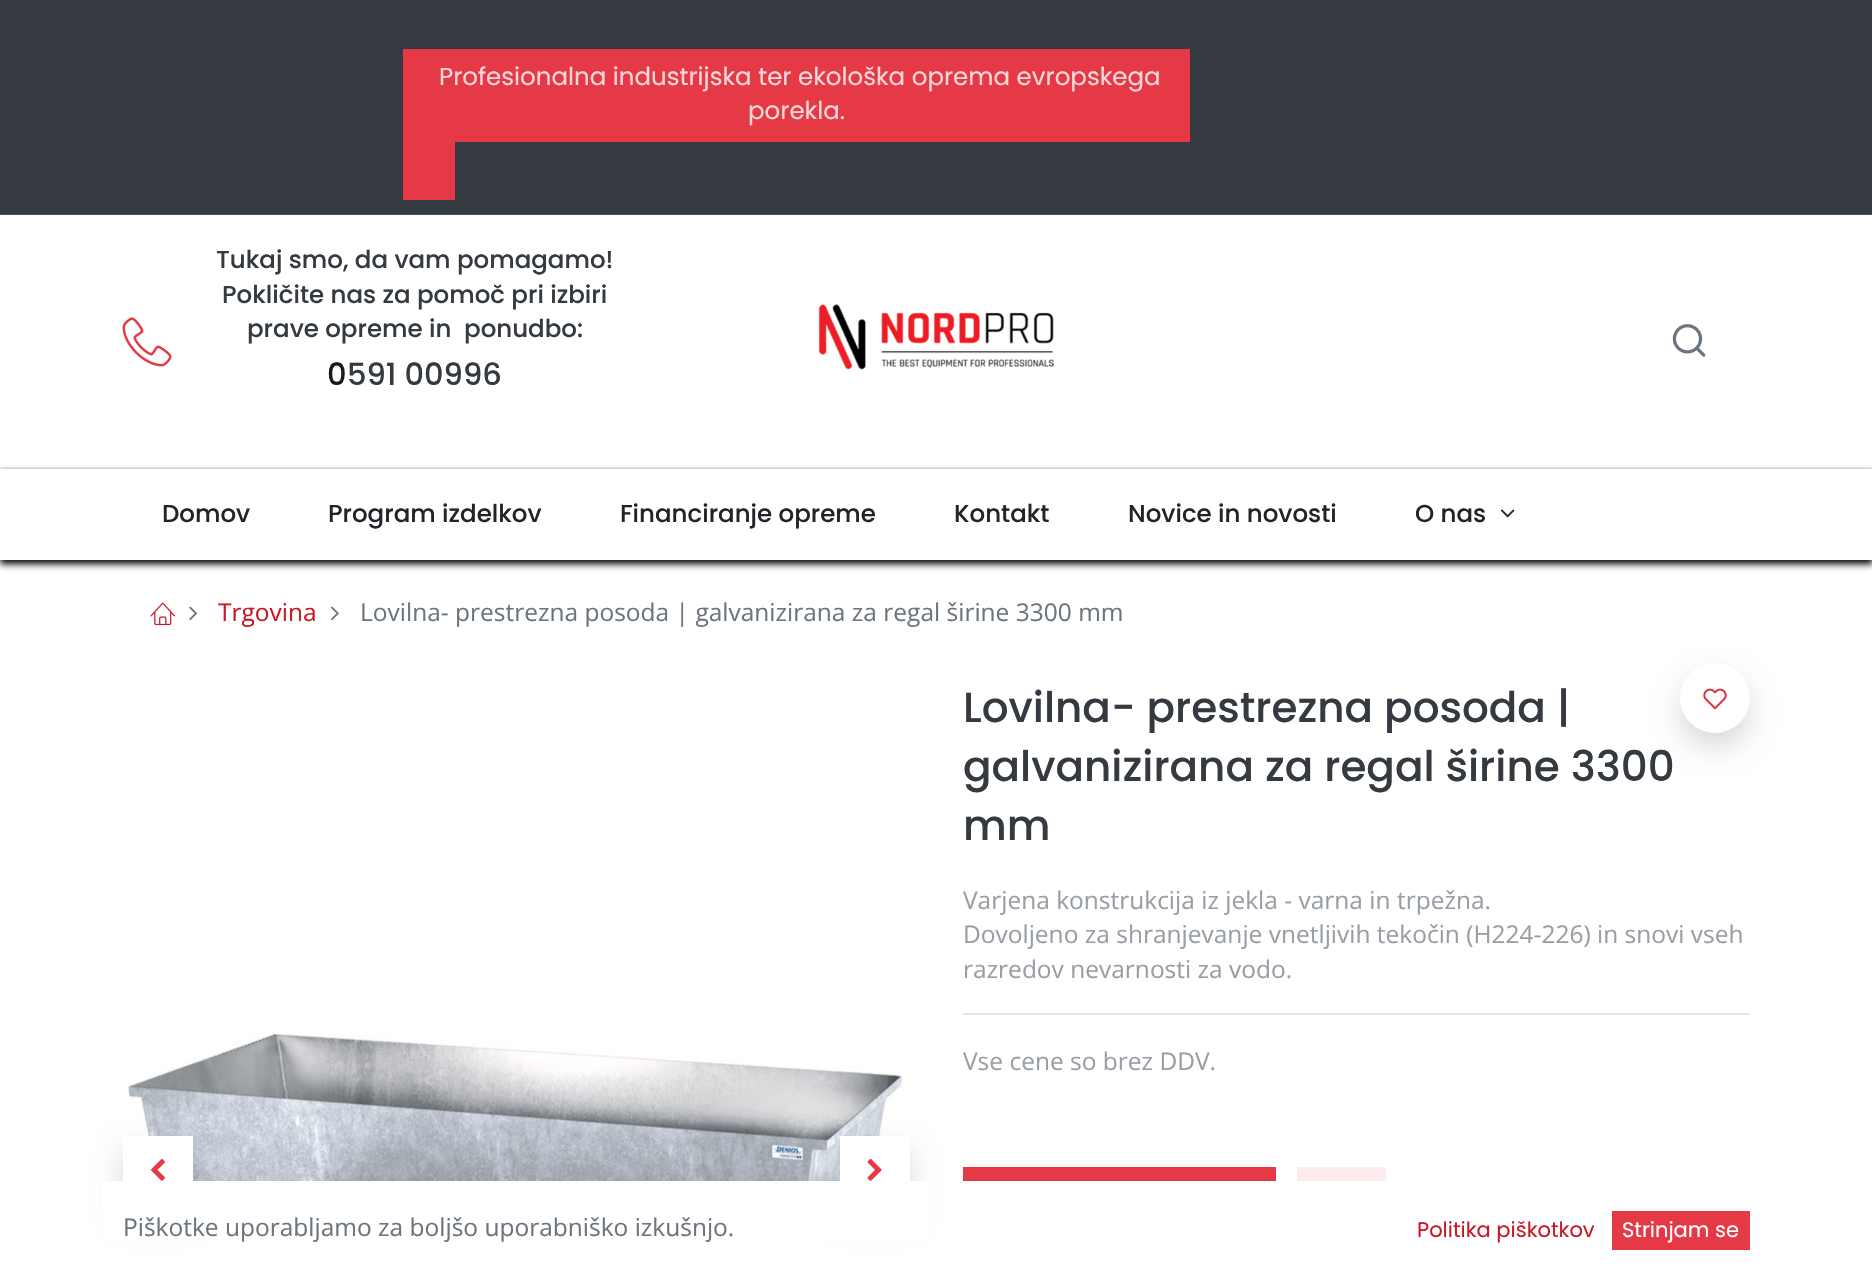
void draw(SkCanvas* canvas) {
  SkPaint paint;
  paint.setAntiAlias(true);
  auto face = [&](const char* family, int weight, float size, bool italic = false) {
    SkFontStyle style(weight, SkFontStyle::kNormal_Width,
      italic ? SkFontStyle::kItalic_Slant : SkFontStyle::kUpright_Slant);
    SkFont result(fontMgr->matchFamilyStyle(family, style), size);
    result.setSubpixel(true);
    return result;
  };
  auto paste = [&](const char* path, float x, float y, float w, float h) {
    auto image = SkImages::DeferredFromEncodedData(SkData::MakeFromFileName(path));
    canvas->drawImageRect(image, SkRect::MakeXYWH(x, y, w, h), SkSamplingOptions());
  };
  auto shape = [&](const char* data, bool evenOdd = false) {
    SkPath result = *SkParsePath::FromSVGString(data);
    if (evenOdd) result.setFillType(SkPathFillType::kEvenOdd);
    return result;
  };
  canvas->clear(0xffffffff);
  {
    const struct { float x, y, w, h; SkColor color; } items[] = {
      {0, 0, 1872, 214, 0xff343a40},
      {0, 214, 1872, 1, 0xff4c5257},
      {403, 49, 787, 93, 0xffe63946},
      {403, 142, 52, 58, 0xffe63946},
      {0, 467, 1872, 2, 0xffedeeef},
    };
    for (auto [x, y, w, h, color] : items) {
      paint.setColor(color);
      canvas->drawRect(SkRect::MakeXYWH(x, y, w, h), paint);
    }
  }
  paste("img/1.png", 122, 317, 50, 50);
  paste("img/2.png", 818, 304, 236, 66);
  paste("img/3.png", 1672, 324, 34, 33);
  canvas->save();
  canvas->clipPath(shape("M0 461H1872V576H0ZM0 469H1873V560H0Z", true), true);
  paint.setColor(0xff000000);
  paint.setMaskFilter(SkMaskFilter::MakeBlur(kNormal_SkBlurStyle, 3.5f));
  canvas->drawRect(SkRect::MakeXYWH(0, 473, 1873, 91), paint);
  paint.setMaskFilter(nullptr);
  canvas->restore();
  paste("img/4.png", 1500, 509, 15, 9);
  paste("img/5.png", 150, 602, 25, 24);
  paste("img/6.png", 189, 606, 9, 15);
  paste("img/7.png", 331, 606, 8, 15);
  paint.setColor(0x26000000);
  paint.setMaskFilter(SkMaskFilter::MakeBlur(kNormal_SkBlurStyle, 14));
  canvas->drawRoundRect(SkRect::MakeXYWH(1680, 677, 70, 70), 35, 35, paint);
  paint.setMaskFilter(nullptr);
  paint.setColor(0xffffffff);
  canvas->drawCircle(1715, 698, 35, paint);
  paste("img/8.png", 1703, 688, 24, 22);
  {
    const struct { float x, y, w, h; SkColor color; } items[] = {
      {1297, 1167, 89, 14, 0xfffdebed},
      {963, 1013, 787, 2, 0xffe6e6e6},
      {963, 1167, 313, 14, 0xffe63946},
    };
    for (auto [x, y, w, h, color] : items) {
      paint.setColor(color);
      canvas->drawRect(SkRect::MakeXYWH(x, y, w, h), paint);
    }
  }
  paste("img/9.png", 128, 1033, 782, 148);
  paint.setColor(0x26000000);
  paint.setMaskFilter(SkMaskFilter::MakeBlur(kNormal_SkBlurStyle, 14));
  canvas->drawRect(SkRect::MakeXYWH(123, 1150, 70, 70), paint);
  paint.setMaskFilter(nullptr);
  paint.setColor(0xffffffff);
  canvas->drawRect(SkRect::MakeXYWH(123, 1136, 70, 45), paint);
  paste("img/10.png", 150, 1158, 15, 23);
  paint.setColor(0x26000000);
  paint.setMaskFilter(SkMaskFilter::MakeBlur(kNormal_SkBlurStyle, 14));
  canvas->drawRect(SkRect::MakeXYWH(840, 1150, 70, 70), paint);
  paint.setMaskFilter(nullptr);
  paint.setColor(0xffffffff);
  canvas->drawRect(SkRect::MakeXYWH(840, 1136, 70, 45), paint);
  paste("img/11.png", 867, 1158, 15, 23);
  canvas->drawRect(SkRect::MakeXYWH(102, 1181, 829, 60), paint);
  paint.setColor(0xffe63946);
  canvas->drawRect(SkRect::MakeXYWH(1612, 1211, 138, 39), paint);
  auto f0 = face("Poppins", 400, 24.5f);
  paint.setColor(0xfffad7da);
  canvas->drawString("Profesionalna industrijska ter ekološka oprema evropskega", 439, 85, f0, paint);
  canvas->drawString("porekla.", 748, 119, f0, paint);
  auto f1 = face("Poppins", 500, 24.5f);
  paint.setColor(0xff343a40);
  {
    const struct { const char* s; float x, y; } items[] = {
      {"Tukaj smo, da vam pomagamo!", 216, 268},
      {"Pokličite nas za pomoč pri izbiri", 222, 303},
      {"prave opreme in  ponudbo:", 247, 337},
    };
    for (auto [s, x, y] : items) {
      canvas->drawString(s, x, y, f1, paint);
    }
  }
  auto f2 = face("Poppins", 500, 30.5f);
  paint.setColor(0xff1a1919);
  canvas->drawString("0", 327, 385, f2, paint);
  paint.setColor(0xff343a40);
  canvas->drawString("591 00996", 347, 385, f2, paint);
  paint.setColor(0xff212529);
  {
    const struct { const char* s; float x, y; } items[] = {
      {"Domov", 162, 522},
      {"Program izdelkov", 328, 522},
      {"Financiranje opreme", 620, 522},
      {"Kontakt", 954, 522},
      {"Novice in novosti", 1128, 522},
      {"O nas", 1415, 522},
    };
    for (auto [s, x, y] : items) {
      canvas->drawString(s, x, y, f1, paint);
    }
  }
  auto f3 = face("Open Sans", 400, 24.5f);
  paint.setColor(0xffc81926);
  canvas->drawString("Trgovina", 218, 621, f3, paint);
  paint.setColor(0xff6c757d);
  canvas->drawString("Lovilna- prestrezna posoda | galvanizirana za regal širine 3300 mm", 360, 621, f3, paint);
  auto f4 = face("Poppins", 500, 42.1f);
  paint.setColor(0xff343a40);
  {
    const struct { const char* s; float x, y; } items[] = {
      {"Lovilna- prestrezna posoda |", 963, 722},
      {"galvanizirana za regal širine 3300", 963, 781},
      {"mm", 963, 840},
    };
    for (auto [s, x, y] : items) {
      canvas->drawString(s, x, y, f4, paint);
    }
  }
  paint.setColor(0xff989ea4);
  {
    const struct { const char* s; float x, y; } items[] = {
      {"Varjena konstrukcija iz jekla - varna in trpežna.", 963, 909},
      {"Dovoljeno za shranjevanje vnetljivih tekočin (H224-226) in snovi vseh", 963, 943},
      {"razredov nevarnosti za vodo.", 963, 978},
      {"Vse cene so brez DDV.", 963, 1070},
    };
    for (auto [s, x, y] : items) {
      canvas->drawString(s, x, y, f3, paint);
    }
  }
  paint.setColor(0xff6c757d);
  canvas->drawString("Piškotke uporabljamo za boljšo uporabniško izkušnjo.", 123, 1236, f3, paint);
  auto f5 = face("Poppins", 400, 21);
  paint.setColor(0xffc81926);
  canvas->drawString("Politika piškotkov", 1417, 1237, f5, paint);
  paint.setColor(0xffffffff);
  canvas->drawString("Strinjam se", 1622, 1237, f5, paint);
}
